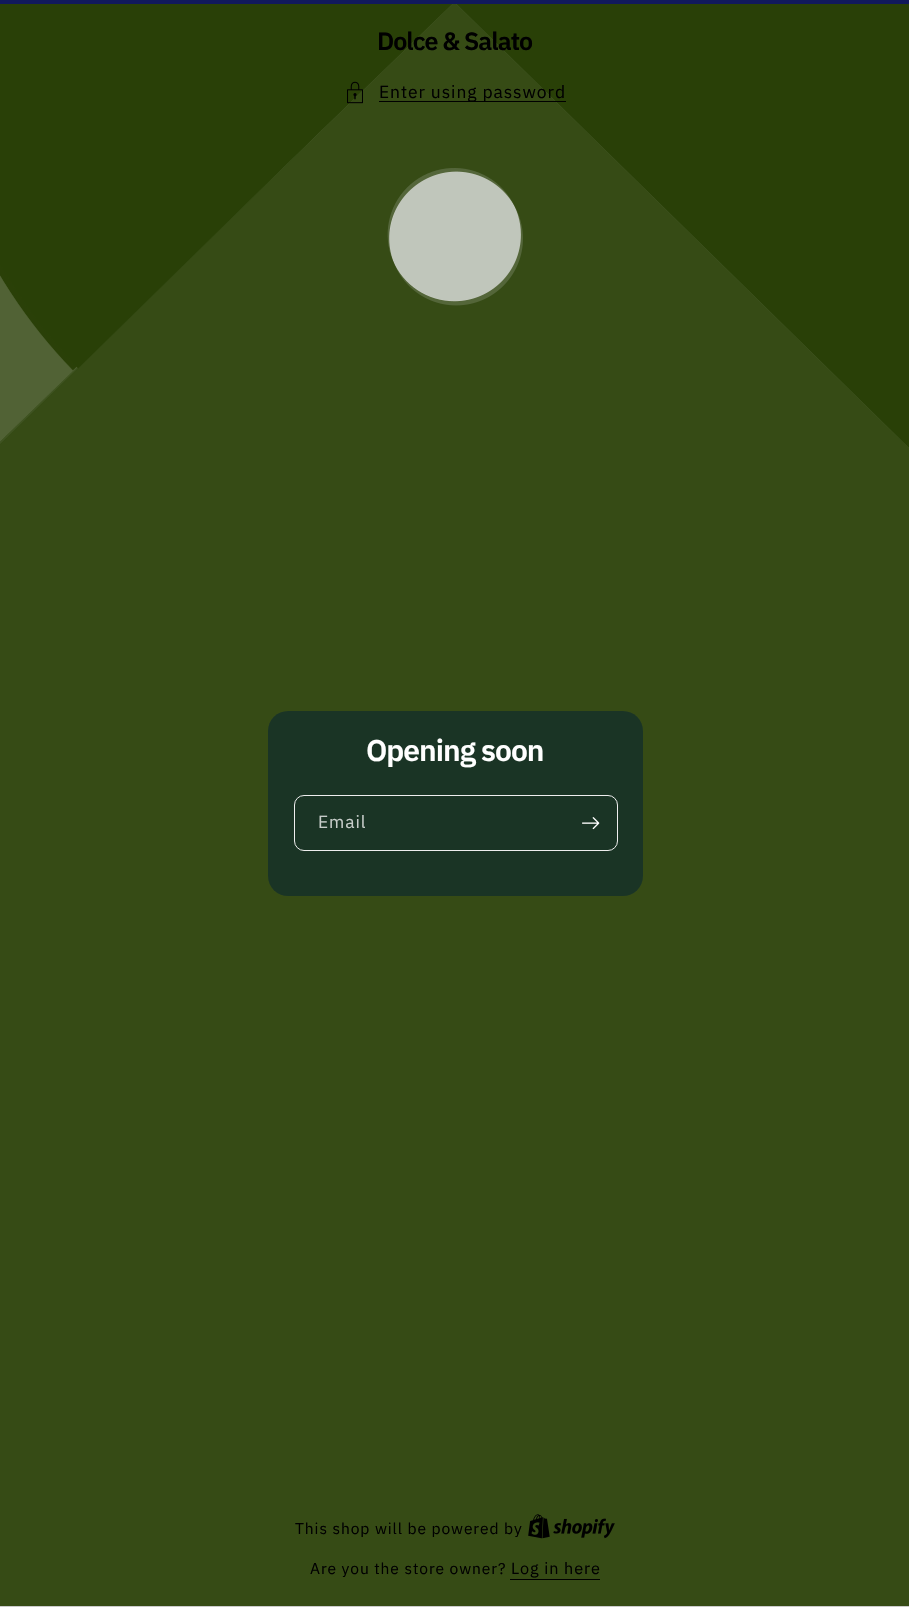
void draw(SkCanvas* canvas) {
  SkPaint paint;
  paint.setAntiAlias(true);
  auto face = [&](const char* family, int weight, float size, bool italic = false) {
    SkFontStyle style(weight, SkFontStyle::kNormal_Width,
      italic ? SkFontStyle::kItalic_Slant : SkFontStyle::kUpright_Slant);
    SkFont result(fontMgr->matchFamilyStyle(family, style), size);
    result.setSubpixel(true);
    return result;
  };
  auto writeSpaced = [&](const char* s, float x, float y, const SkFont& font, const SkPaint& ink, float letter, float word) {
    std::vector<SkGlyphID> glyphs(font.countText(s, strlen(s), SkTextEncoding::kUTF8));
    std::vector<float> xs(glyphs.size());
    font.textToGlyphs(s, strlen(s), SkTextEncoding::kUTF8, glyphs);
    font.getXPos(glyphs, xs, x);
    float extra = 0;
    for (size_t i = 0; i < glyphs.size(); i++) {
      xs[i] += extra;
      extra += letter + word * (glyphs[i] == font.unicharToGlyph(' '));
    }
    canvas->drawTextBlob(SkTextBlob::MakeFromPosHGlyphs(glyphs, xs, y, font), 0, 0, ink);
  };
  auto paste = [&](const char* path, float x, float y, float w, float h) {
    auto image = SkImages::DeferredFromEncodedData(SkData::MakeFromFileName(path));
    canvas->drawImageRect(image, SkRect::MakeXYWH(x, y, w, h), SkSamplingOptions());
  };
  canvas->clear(0xffcccccc);
  paint.setColor(0xff11195c);
  canvas->drawRect(SkRect::MakeXYWH(0, 0, 909, 4), paint);
  paint.setColor(0xffe6e6e6);
  canvas->drawRect(SkRect::MakeXYWH(0, 4, 909, 1602), paint);
  paste("img/2.png", 0, 4, 909, 1602);
  paste("img/3.png", 0, 4, 909, 1602);
  paste("img/1.png", 347, 81, 16, 23);
  paint.setColor(0xff000000);
  canvas->drawRect(SkRect::MakeXYWH(379, 101, 187, 1), paint);
  paint.setColor(0xff1a3425);
  canvas->drawRoundRect(SkRect::MakeXYWH(268, 711, 375, 185), 20, 20, paint);
  paint.setStroke(true);
  paint.setStrokeWidth(1);
  paint.setColor(0xffeeeeee);
  canvas->drawRoundRect(SkRect::MakeXYWH(294.5f, 795.5f, 323, 55), 9.5f, 9.5f, paint);
  paste("img/4.png", 582, 817, 18, 13);
  paste("img/5.png", 528, 1514, 87, 25);
  paint.setStroke(false);
  paint.setColor(0xff000000);
  canvas->drawRect(SkRect::MakeXYWH(510, 1579, 90, 1), paint);
  auto f0 = face("IBM Plex Sans", 600, 25);
  writeSpaced("Dolce & Salato", 377, 50, f0, paint, -1, 0);
  auto f1 = face("IBM Plex Sans", 400, 17.5f);
  writeSpaced("Enter using password", 379, 98, f1, paint, 0.9f, 0);
  auto f2 = face("IBM Plex Sans", 600, 30);
  paint.setColor(0xffffffff);
  writeSpaced("Opening soon", 366, 761, f2, paint, -1, 0);
  paint.setColor(0xffc6ccc9);
  writeSpaced("Email", 318, 828, f1, paint, 0.9f, 0);
  auto f3 = face("IBM Plex Sans", 400, 15.6f);
  paint.setColor(0xff000000);
  writeSpaced("This shop will be powered by", 295, 1534, f3, paint, 0.9f, 0);
  writeSpaced("Are you the store owner?", 310, 1574, f3, paint, 0.9f, 0);
  auto f4 = face("IBM Plex Sans", 400, 16.25f);
  writeSpaced("Log in here", 511, 1574, f4, paint, 0.9f, 0);
}
